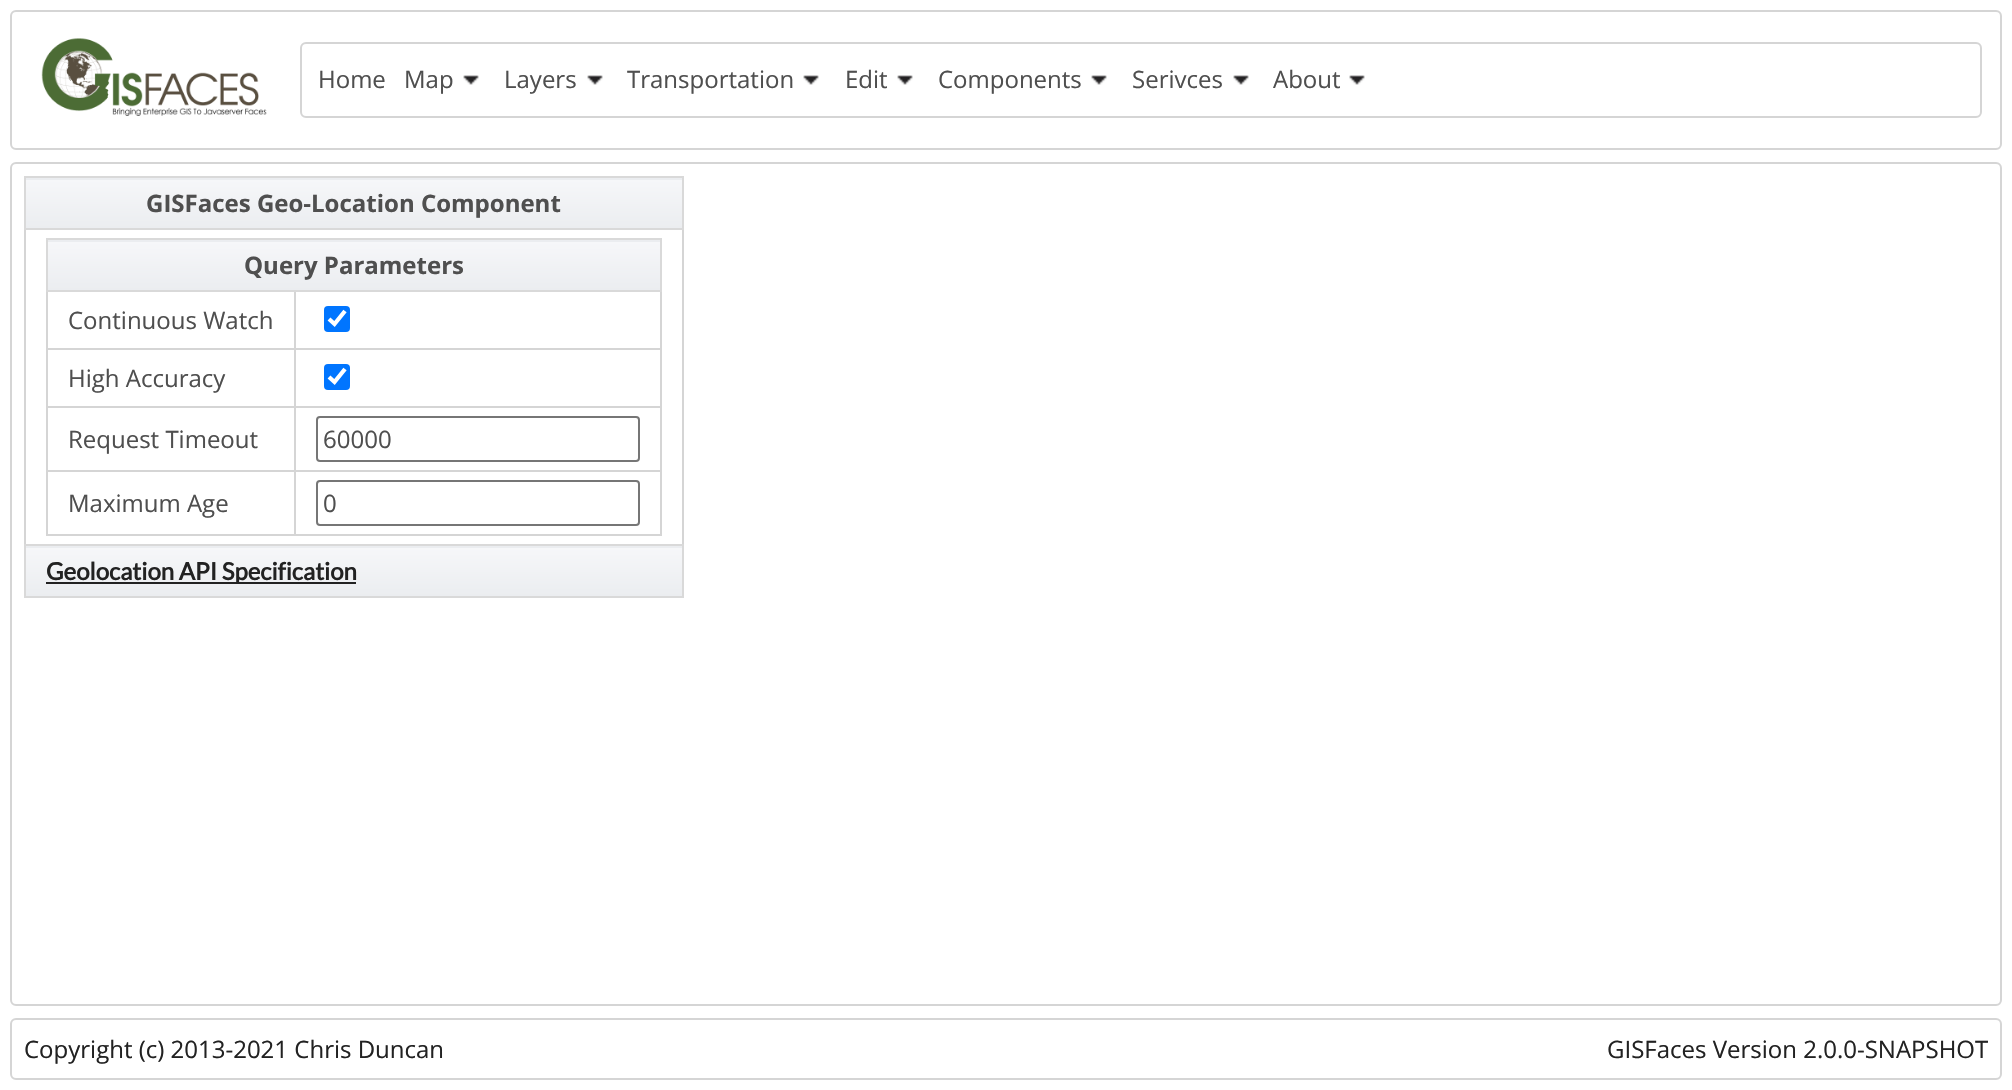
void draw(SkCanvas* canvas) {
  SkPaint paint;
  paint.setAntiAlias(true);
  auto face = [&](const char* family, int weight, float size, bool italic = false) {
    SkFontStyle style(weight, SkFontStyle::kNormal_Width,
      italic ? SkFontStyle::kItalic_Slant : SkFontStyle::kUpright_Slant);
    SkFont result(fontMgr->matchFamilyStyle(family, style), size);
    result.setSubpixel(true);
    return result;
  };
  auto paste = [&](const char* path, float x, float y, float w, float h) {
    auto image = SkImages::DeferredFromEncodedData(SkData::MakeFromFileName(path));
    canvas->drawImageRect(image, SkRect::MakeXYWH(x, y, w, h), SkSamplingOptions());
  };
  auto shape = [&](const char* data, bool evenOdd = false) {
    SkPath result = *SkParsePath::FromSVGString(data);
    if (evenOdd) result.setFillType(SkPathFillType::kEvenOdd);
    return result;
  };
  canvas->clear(0xffffffff);
  paint.setStroke(true);
  paint.setStrokeWidth(2);
  paint.setColor(0xffd5d5d5);
  canvas->drawRoundRect(SkRect::MakeXYWH(11, 11, 1990, 138), 5, 5, paint);
  paste("img/1.png", 41, 38, 226, 78);
  canvas->drawRoundRect(SkRect::MakeXYWH(301, 43, 1680, 74), 5, 5, paint);
  paste("img/2.png", 463, 75, 16, 10);
  paste("img/2.png", 587, 75, 16, 10);
  paste("img/2.png", 803, 75, 16, 10);
  paste("img/2.png", 897, 75, 16, 10);
  paste("img/2.png", 1091, 75, 16, 10);
  paste("img/2.png", 1233, 75, 16, 10);
  paste("img/2.png", 1349, 75, 16, 10);
  canvas->drawRoundRect(SkRect::MakeXYWH(11, 163, 1990, 842), 5, 5, paint);
  paint.setStroke(false);
  {
    const SkColor colors[] = {0xfff6f7f9, 0xffebedf0};
    const float stops[] = {0, 1};
    const SkPoint ends[] = {{354, 132}, {354, 180}};
    paint.setShader(SkGradientShader::MakeLinear(ends, colors, stops, 2, SkTileMode::kClamp));
    paint.setAlpha(255);
  }
  canvas->drawRect(SkRect::MakeXYWH(26, 178, 656, 2), paint);
  {
    const SkColor colors[] = {0xfff6f7f9, 0xffebedf0};
    const float stops[] = {0, 1};
    const SkPoint ends[] = {{354, 180}, {354, 228}};
    paint.setShader(SkGradientShader::MakeLinear(ends, colors, stops, 2, SkTileMode::kClamp));
    paint.setAlpha(255);
  }
  canvas->drawRect(SkRect::MakeXYWH(26, 180, 656, 48), paint);
  paint.setShader(nullptr);
  {
    const struct { float x, y, w, h; SkColor color; } items[] = {
      {24, 176, 660, 2, 0xffd9d9d9},
      {24, 228, 2, 318, 0xffd5d5d5},
      {24, 176, 2, 54, 0xffd9d9d9},
      {682, 544, 2, 54, 0xffd9d9d9},
      {682, 228, 2, 318, 0xffd5d5d5},
      {682, 176, 2, 54, 0xffd9d9d9},
      {24, 228, 660, 2, 0xffd9d9d9},
    };
    for (auto [x, y, w, h, color] : items) {
      paint.setColor(color);
      canvas->drawRect(SkRect::MakeXYWH(x, y, w, h), paint);
    }
  }
  {
    const SkColor colors[] = {0xfff6f7f9, 0xffebedf0};
    const float stops[] = {0, 1};
    const SkPoint ends[] = {{354, 194}, {354, 242}};
    paint.setShader(SkGradientShader::MakeLinear(ends, colors, stops, 2, SkTileMode::kClamp));
    paint.setAlpha(255);
  }
  canvas->drawRect(SkRect::MakeXYWH(48, 240, 612, 2), paint);
  {
    const SkColor colors[] = {0xfff6f7f9, 0xffebedf0};
    const float stops[] = {0, 1};
    const SkPoint ends[] = {{354, 242}, {354, 290}};
    paint.setShader(SkGradientShader::MakeLinear(ends, colors, stops, 2, SkTileMode::kClamp));
    paint.setAlpha(255);
  }
  canvas->drawRect(SkRect::MakeXYWH(48, 242, 612, 48), paint);
  paint.setShader(nullptr);
  {
    const struct { float x, y, w, h; SkColor color; } items[] = {
      {46, 238, 616, 2, 0xffd9d9d9},
      {46, 348, 616, 2, 0xffd5d5d5},
      {46, 406, 616, 2, 0xffd5d5d5},
      {46, 470, 616, 2, 0xffd5d5d5},
      {660, 470, 2, 66, 0xffd5d5d5},
      {46, 534, 616, 2, 0xffd5d5d5},
      {46, 470, 2, 66, 0xffd5d5d5},
      {46, 406, 2, 66, 0xffd5d5d5},
      {46, 290, 2, 118, 0xffd5d5d5},
      {46, 238, 2, 54, 0xffd9d9d9},
      {660, 406, 2, 66, 0xffd5d5d5},
      {660, 290, 2, 118, 0xffd5d5d5},
      {660, 238, 2, 54, 0xffd9d9d9},
      {294, 290, 2, 246, 0xffd5d5d5},
      {46, 290, 616, 2, 0xffd9d9d9},
    };
    for (auto [x, y, w, h, color] : items) {
      paint.setColor(color);
      canvas->drawRect(SkRect::MakeXYWH(x, y, w, h), paint);
    }
  }
  paint.setColor(0xff0075ff);
  canvas->drawRoundRect(SkRect::MakeXYWH(324, 306, 26, 26), 4, 4, paint);
  paint.setStroke(true);
  paint.setStrokeWidth(4.2f);
  paint.setColor(0xffffffff);
  canvas->drawPath(shape("M329 319L334.5 324L345 311"), paint);
  paint.setStroke(false);
  paint.setColor(0xff0075ff);
  canvas->drawRoundRect(SkRect::MakeXYWH(324, 364, 26, 26), 4, 4, paint);
  paint.setStroke(true);
  paint.setColor(0xffffffff);
  canvas->drawPath(shape("M329 377L334.5 382L345 369"), paint);
  paint.setStrokeWidth(2);
  paint.setColor(0xff767676);
  canvas->drawRoundRect(SkRect::MakeXYWH(317, 417, 322, 44), 3, 3, paint);
  canvas->drawRoundRect(SkRect::MakeXYWH(317, 481, 322, 44), 3, 3, paint);
  paint.setStroke(false);
  {
    const SkColor colors[] = {0xfff6f7f9, 0xffebedf0};
    const float stops[] = {0, 1};
    const SkPoint ends[] = {{354, 500}, {354, 548}};
    paint.setShader(SkGradientShader::MakeLinear(ends, colors, stops, 2, SkTileMode::kClamp));
    paint.setAlpha(255);
  }
  canvas->drawRect(SkRect::MakeXYWH(26, 546, 656, 2), paint);
  {
    const SkColor colors[] = {0xfff6f7f9, 0xffebedf0};
    const float stops[] = {0, 1};
    const SkPoint ends[] = {{354, 548}, {354, 596}};
    paint.setShader(SkGradientShader::MakeLinear(ends, colors, stops, 2, SkTileMode::kClamp));
    paint.setAlpha(255);
  }
  canvas->drawRect(SkRect::MakeXYWH(26, 548, 656, 48), paint);
  paint.setShader(nullptr);
  {
    const struct { float x, y, w, h; SkColor color; } items[] = {
      {24, 596, 660, 2, 0xffd9d9d9},
      {24, 544, 2, 54, 0xffd9d9d9},
      {24, 544, 660, 2, 0xffd9d9d9},
      {46, 582, 310, 2, 0xff222222},
    };
    for (auto [x, y, w, h, color] : items) {
      paint.setColor(color);
      canvas->drawRect(SkRect::MakeXYWH(x, y, w, h), paint);
    }
  }
  paint.setStroke(true);
  paint.setColor(0xffd5d5d5);
  canvas->drawRoundRect(SkRect::MakeXYWH(11, 1019, 1990, 60), 5, 5, paint);
  auto f0 = face("Open Sans", 400, 24);
  paint.setStroke(false);
  paint.setColor(0xff4f4f4f);
  {
    const struct { const char* s; float x, y; } items[] = {
      {"Home", 318, 88},
      {"Map", 404, 88},
      {"Layers", 504, 88},
      {"Transportation", 627, 88},
      {"Edit", 845, 88},
      {"Components", 938, 88},
      {"Serivces", 1132, 88},
      {"About", 1273, 88},
    };
    for (auto [s, x, y] : items) {
      canvas->drawString(s, x, y, f0, paint);
    }
  }
  auto f1 = face("Open Sans", 700, 24);
  canvas->drawString("GISFaces Geo-Location Component", 146, 212, f1, paint);
  canvas->drawString("Query Parameters", 244, 274, f1, paint);
  {
    const struct { const char* s; float x, y; } items[] = {
      {"Continuous Watch", 68, 329},
      {"High Accuracy", 68, 387},
      {"Request Timeout", 68, 448},
      {"60000", 323, 448},
      {"Maximum Age", 68, 512},
      {"0", 323, 512},
    };
    for (auto [s, x, y] : items) {
      canvas->drawString(s, x, y, f0, paint);
    }
  }
  auto f2 = face("Lato", 700, 24);
  paint.setColor(0xff222222);
  canvas->drawString("Geolocation API Specification", 46, 580, f2, paint);
  canvas->drawString("Copyright (c) 2013-2021 Chris Duncan", 24, 1058, f0, paint);
  canvas->drawString("GISFaces Version 2.0.0-SNAPSHOT", 1607, 1058, f0, paint);
}
